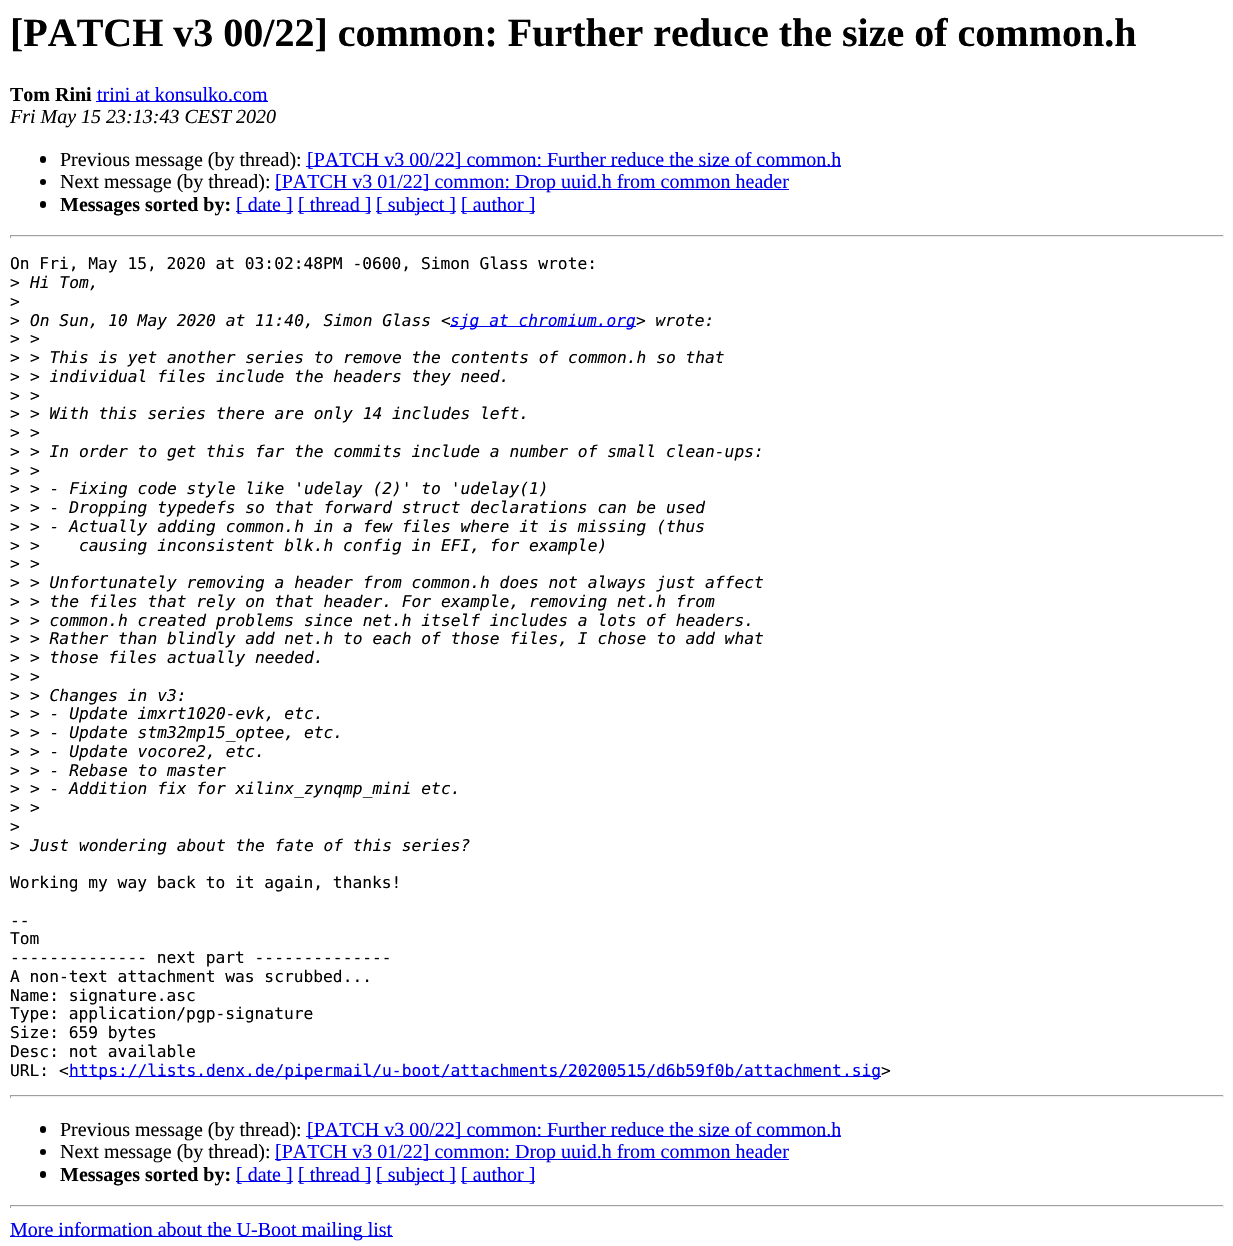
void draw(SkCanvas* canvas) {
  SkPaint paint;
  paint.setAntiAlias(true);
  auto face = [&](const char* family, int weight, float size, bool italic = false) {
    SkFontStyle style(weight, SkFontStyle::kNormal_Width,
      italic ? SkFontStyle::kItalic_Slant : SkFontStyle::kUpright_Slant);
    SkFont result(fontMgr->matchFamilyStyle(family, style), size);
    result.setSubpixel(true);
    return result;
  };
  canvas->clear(0xffffffff);
  paint.setColor(0xff0000ee);
  canvas->drawRect(SkRect::MakeXYWH(96, 101, 172, 1), paint);
  paint.setColor(0xff000000);
  canvas->drawRoundRect(SkRect::MakeXYWH(40, 156, 6, 7), 3, 3, paint);
  paint.setColor(0xff0000ee);
  canvas->drawRect(SkRect::MakeXYWH(306, 166, 535, 1), paint);
  paint.setColor(0xff000000);
  canvas->drawCircle(43, 182, 3, paint);
  paint.setColor(0xff0000ee);
  canvas->drawRect(SkRect::MakeXYWH(275, 189, 514, 1), paint);
  paint.setColor(0xff000000);
  canvas->drawRoundRect(SkRect::MakeXYWH(40, 201, 6, 7), 3, 3, paint);
  {
    const struct { float x, y, w, h; SkColor color; } items[] = {
      {236, 211, 57, 1, 0xff0000ee},
      {298, 211, 73, 1, 0xff0000ee},
      {376, 211, 80, 1, 0xff0000ee},
      {461, 211, 74, 1, 0xff0000ee},
      {10, 235, 1214, 1, 0xff9f9f9f},
      {1223, 235, 1, 3, 0xffeeeeee},
      {10, 236, 1214, 1, 0xffeeeeee},
      {10, 235, 1, 3, 0xff9f9f9f},
      {450, 326, 186, 1, 0xff0000ee},
      {69, 1076, 812, 1, 0xff0000ee},
      {10, 1095, 1214, 1, 0xff9f9f9f},
      {1223, 1095, 1, 3, 0xffeeeeee},
      {10, 1096, 1214, 1, 0xffeeeeee},
      {10, 1095, 1, 3, 0xff9f9f9f},
    };
    for (auto [x, y, w, h, color] : items) {
      paint.setColor(color);
      canvas->drawRect(SkRect::MakeXYWH(x, y, w, h), paint);
    }
  }
  paint.setColor(0xff000000);
  canvas->drawRoundRect(SkRect::MakeXYWH(40, 1126, 6, 7), 3, 3, paint);
  paint.setColor(0xff0000ee);
  canvas->drawRect(SkRect::MakeXYWH(306, 1136, 535, 1), paint);
  paint.setColor(0xff000000);
  canvas->drawCircle(43, 1152, 3, paint);
  paint.setColor(0xff0000ee);
  canvas->drawRect(SkRect::MakeXYWH(275, 1159, 514, 1), paint);
  paint.setColor(0xff000000);
  canvas->drawRoundRect(SkRect::MakeXYWH(40, 1171, 6, 7), 3, 3, paint);
  {
    const struct { float x, y, w, h; SkColor color; } items[] = {
      {236, 1181, 57, 1, 0xff0000ee},
      {298, 1181, 73, 1, 0xff0000ee},
      {376, 1181, 80, 1, 0xff0000ee},
      {461, 1181, 74, 1, 0xff0000ee},
      {10, 1205, 1214, 1, 0xff9f9f9f},
      {1223, 1205, 1, 3, 0xffeeeeee},
      {10, 1206, 1214, 1, 0xffeeeeee},
      {10, 1205, 1, 3, 0xff9f9f9f},
      {10, 1236, 383, 1, 0xff0000ee},
    };
    for (auto [x, y, w, h, color] : items) {
      paint.setColor(color);
      canvas->drawRect(SkRect::MakeXYWH(x, y, w, h), paint);
    }
  }
  auto f0 = face("Liberation Serif", 700, 40);
  paint.setColor(0xff000000);
  canvas->drawString("[PATCH v3 00/22] common: Further reduce the size of common.h", 10, 46, f0, paint);
  auto f1 = face("Liberation Serif", 700, 20);
  canvas->drawString("Tom Rini", 10, 101, f1, paint);
  auto f2 = face("Liberation Serif", 400, 20);
  paint.setColor(0xff0000ee);
  canvas->drawString("trini at konsulko.com", 97, 101, f2, paint);
  auto f3 = face("Liberation Serif", 400, 20, true);
  paint.setColor(0xff000000);
  canvas->drawString("Fri May 15 23:13:43 CEST 2020", 10, 123, f3, paint);
  canvas->drawString("Previous message (by thread):", 60, 166, f2, paint);
  paint.setColor(0xff0000ee);
  canvas->drawString("[PATCH v3 00/22] common: Further reduce the size of common.h", 307, 166, f2, paint);
  paint.setColor(0xff000000);
  canvas->drawString("Next message (by thread):", 60, 188, f2, paint);
  paint.setColor(0xff0000ee);
  canvas->drawString("[PATCH v3 01/22] common: Drop uuid.h from common header", 275, 188, f2, paint);
  paint.setColor(0xff000000);
  canvas->drawString("Messages sorted by:", 60, 211, f1, paint);
  paint.setColor(0xff0000ee);
  {
    const struct { const char* s; float x, y; } items[] = {
      {"[ date ]", 236, 211},
      {"[ thread ]", 298, 211},
      {"[ subject ]", 376, 211},
      {"[ author ]", 461, 211},
    };
    for (auto [s, x, y] : items) {
      canvas->drawString(s, x, y, f2, paint);
    }
  }
  auto f4 = face("DejaVu Sans Mono", 400, 16.25f);
  paint.setColor(0xff000000);
  canvas->drawString("On Fri, May 15, 2020 at 03:02:48PM -0600, Simon Glass wrote:", 10, 269, f4, paint);
  canvas->drawString(">", 10, 288, f4, paint);
  auto f5 = face("DejaVu Sans Mono", 400, 16.25f, true);
  canvas->drawString("Hi Tom,", 30, 288, f5, paint);
  canvas->drawString(">", 10, 307, f4, paint);
  canvas->drawString(">", 10, 326, f4, paint);
  canvas->drawString("On Sun, 10 May 2020 at 11:40, Simon Glass <", 30, 326, f5, paint);
  paint.setColor(0xff0000ee);
  canvas->drawString("sjg at chromium.org", 450, 326, f5, paint);
  paint.setColor(0xff000000);
  canvas->drawString("> wrote:", 636, 326, f5, paint);
  canvas->drawString(">", 10, 344, f4, paint);
  canvas->drawString(">", 30, 344, f5, paint);
  canvas->drawString(">", 10, 363, f4, paint);
  canvas->drawString("> This is yet another series to remove the contents of common.h so that", 30, 363, f5, paint);
  canvas->drawString(">", 10, 382, f4, paint);
  canvas->drawString("> individual files include the headers they need.", 30, 382, f5, paint);
  canvas->drawString(">", 10, 401, f4, paint);
  canvas->drawString(">", 30, 401, f5, paint);
  canvas->drawString(">", 10, 419, f4, paint);
  canvas->drawString("> With this series there are only 14 includes left.", 30, 419, f5, paint);
  canvas->drawString(">", 10, 438, f4, paint);
  canvas->drawString(">", 30, 438, f5, paint);
  canvas->drawString(">", 10, 457, f4, paint);
  canvas->drawString("> In order to get this far the commits include a number of small clean-ups:", 30, 457, f5, paint);
  canvas->drawString(">", 10, 476, f4, paint);
  canvas->drawString(">", 30, 476, f5, paint);
  canvas->drawString(">", 10, 494, f4, paint);
  canvas->drawString("> - Fixing code style like 'udelay (2)' to 'udelay(1)", 30, 494, f5, paint);
  canvas->drawString(">", 10, 513, f4, paint);
  canvas->drawString("> - Dropping typedefs so that forward struct declarations can be used", 30, 513, f5, paint);
  canvas->drawString(">", 10, 532, f4, paint);
  canvas->drawString("> - Actually adding common.h in a few files where it is missing (thus", 30, 532, f5, paint);
  canvas->drawString(">", 10, 551, f4, paint);
  canvas->drawString(">    causing inconsistent blk.h config in EFI, for example)", 30, 551, f5, paint);
  canvas->drawString(">", 10, 569, f4, paint);
  canvas->drawString(">", 30, 569, f5, paint);
  canvas->drawString(">", 10, 588, f4, paint);
  canvas->drawString("> Unfortunately removing a header from common.h does not always just affect", 30, 588, f5, paint);
  canvas->drawString(">", 10, 607, f4, paint);
  canvas->drawString("> the files that rely on that header. For example, removing net.h from", 30, 607, f5, paint);
  canvas->drawString(">", 10, 626, f4, paint);
  canvas->drawString("> common.h created problems since net.h itself includes a lots of headers.", 30, 626, f5, paint);
  canvas->drawString(">", 10, 644, f4, paint);
  canvas->drawString("> Rather than blindly add net.h to each of those files, I chose to add what", 30, 644, f5, paint);
  canvas->drawString(">", 10, 663, f4, paint);
  canvas->drawString("> those files actually needed.", 30, 663, f5, paint);
  canvas->drawString(">", 10, 682, f4, paint);
  canvas->drawString(">", 30, 682, f5, paint);
  canvas->drawString(">", 10, 701, f4, paint);
  canvas->drawString("> Changes in v3:", 30, 701, f5, paint);
  canvas->drawString(">", 10, 719, f4, paint);
  canvas->drawString("> - Update imxrt1020-evk, etc.", 30, 719, f5, paint);
  canvas->drawString(">", 10, 738, f4, paint);
  canvas->drawString("> - Update stm32mp15_optee, etc.", 30, 738, f5, paint);
  canvas->drawString(">", 10, 757, f4, paint);
  canvas->drawString("> - Update vocore2, etc.", 30, 757, f5, paint);
  canvas->drawString(">", 10, 776, f4, paint);
  canvas->drawString("> - Rebase to master", 30, 776, f5, paint);
  canvas->drawString(">", 10, 794, f4, paint);
  canvas->drawString("> - Addition fix for xilinx_zynqmp_mini etc.", 30, 794, f5, paint);
  canvas->drawString(">", 10, 813, f4, paint);
  canvas->drawString(">", 30, 813, f5, paint);
  canvas->drawString(">", 10, 832, f4, paint);
  canvas->drawString(">", 10, 851, f4, paint);
  canvas->drawString("Just wondering about the fate of this series?", 30, 851, f5, paint);
  {
    const struct { const char* s; float x, y; } items[] = {
      {"Working my way back to it again, thanks!", 10, 888},
      {"--", 10, 926},
      {"Tom", 10, 944},
      {"-------------- next part --------------", 10, 963},
      {"A non-text attachment was scrubbed...", 10, 982},
      {"Name: signature.asc", 10, 1001},
      {"Type: application/pgp-signature", 10, 1019},
      {"Size: 659 bytes", 10, 1038},
      {"Desc: not available", 10, 1057},
      {"URL: <", 10, 1076},
    };
    for (auto [s, x, y] : items) {
      canvas->drawString(s, x, y, f4, paint);
    }
  }
  paint.setColor(0xff0000ee);
  canvas->drawString("https://lists.denx.de/pipermail/u-boot/attachments/20200515/d6b59f0b/attachment.sig", 69, 1076, f4, paint);
  paint.setColor(0xff000000);
  canvas->drawString(">", 881, 1076, f4, paint);
  canvas->drawString("Previous message (by thread):", 60, 1136, f2, paint);
  paint.setColor(0xff0000ee);
  canvas->drawString("[PATCH v3 00/22] common: Further reduce the size of common.h", 307, 1136, f2, paint);
  paint.setColor(0xff000000);
  canvas->drawString("Next message (by thread):", 60, 1158, f2, paint);
  paint.setColor(0xff0000ee);
  canvas->drawString("[PATCH v3 01/22] common: Drop uuid.h from common header", 275, 1158, f2, paint);
  paint.setColor(0xff000000);
  canvas->drawString("Messages sorted by:", 60, 1181, f1, paint);
  paint.setColor(0xff0000ee);
  {
    const struct { const char* s; float x, y; } items[] = {
      {"[ date ]", 236, 1181},
      {"[ thread ]", 298, 1181},
      {"[ subject ]", 376, 1181},
      {"[ author ]", 461, 1181},
      {"More information about the U-Boot mailing list", 10, 1236},
    };
    for (auto [s, x, y] : items) {
      canvas->drawString(s, x, y, f2, paint);
    }
  }
}
